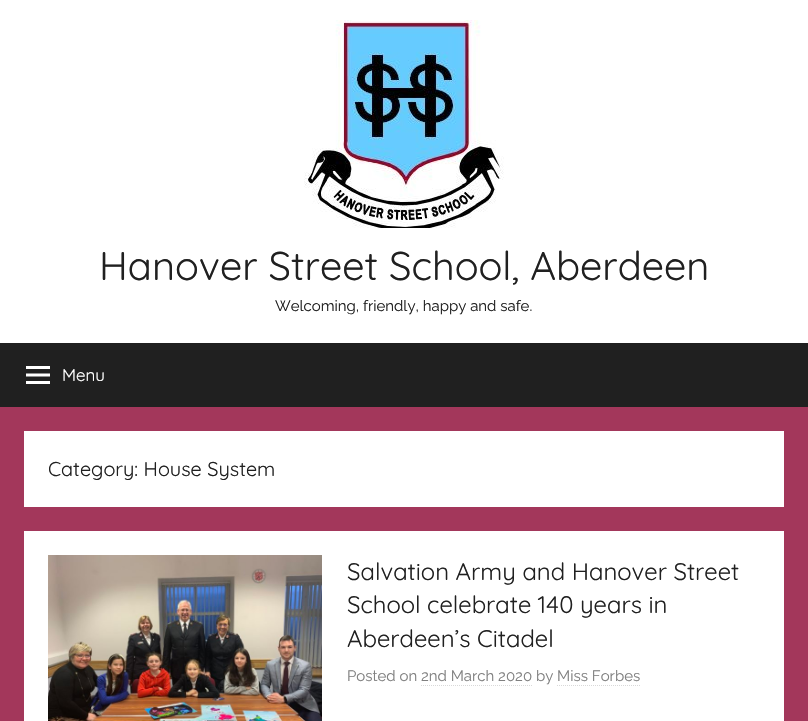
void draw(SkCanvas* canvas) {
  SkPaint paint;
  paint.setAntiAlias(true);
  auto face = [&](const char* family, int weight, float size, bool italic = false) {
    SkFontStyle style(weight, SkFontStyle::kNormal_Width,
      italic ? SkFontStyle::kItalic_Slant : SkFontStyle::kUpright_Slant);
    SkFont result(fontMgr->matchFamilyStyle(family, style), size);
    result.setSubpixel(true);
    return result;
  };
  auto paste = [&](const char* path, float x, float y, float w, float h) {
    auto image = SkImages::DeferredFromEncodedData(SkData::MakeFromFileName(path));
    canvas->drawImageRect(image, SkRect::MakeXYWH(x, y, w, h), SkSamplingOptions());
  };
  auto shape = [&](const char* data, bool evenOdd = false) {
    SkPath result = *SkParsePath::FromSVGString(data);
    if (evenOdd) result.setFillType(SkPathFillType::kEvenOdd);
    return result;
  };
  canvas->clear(0xffa3375b);
  paint.setColor(0xffffffff);
  canvas->drawRect(SkRect::MakeXYWH(0, 0, 808, 343), paint);
  paste("img/1.png", 304, 20, 200, 208);
  paint.setColor(0xff202020);
  canvas->drawRect(SkRect::MakeXYWH(0, 343, 808, 64), paint);
  paste("img/2.png", 26, 366, 24, 18);
  paint.setColor(0xffffffff);
  canvas->drawRect(SkRect::MakeXYWH(24, 431, 760, 76), paint);
  canvas->drawRect(SkRect::MakeXYWH(24, 531, 760, 190), paint);
  paste("img/3.png", 48, 555, 274, 166);
  paint.setStroke(true);
  paint.setStrokeWidth(1);
  paint.setColor(0xffd9d9d9);
  paint.setPathEffect(SkDashPathEffect::Make({{1, 1}}, 0));
  canvas->drawPath(shape("M421 685.5H532"), paint);
  paint.setPathEffect(nullptr);
  paint.setPathEffect(SkDashPathEffect::Make({{1, 1}}, 0));
  canvas->drawPath(shape("M557 685.5H640"), paint);
  paint.setPathEffect(nullptr);
  auto f0 = face("Quicksand", 300, 40);
  paint.setStroke(false);
  paint.setColor(0xff202020);
  canvas->drawString("Hanover Street School, Aberdeen", 99, 280, f0, paint);
  auto f1 = face("Raleway", 100, 15);
  canvas->drawString("Welcoming, friendly, happy and safe.", 275, 311, f1, paint);
  auto f2 = face("Quicksand", 300, 17);
  paint.setColor(0xffffffff);
  canvas->drawString("Menu", 62, 381, f2, paint);
  auto f3 = face("Quicksand", 300, 20);
  paint.setColor(0xff202020);
  canvas->drawString("Category: House System", 48, 476, f3, paint);
  auto f4 = face("Quicksand", 300, 24);
  {
    const struct { const char* s; float x, y; } items[] = {
      {"Salvation Army and Hanover Street", 347, 580},
      {"School celebrate 140 years in", 347, 613},
      {"Aberdeen’s Citadel", 347, 647},
    };
    for (auto [s, x, y] : items) {
      canvas->drawString(s, x, y, f4, paint);
    }
  }
  paint.setColor(0xff808080);
  canvas->drawString("Posted on 2nd March 2020 by Miss Forbes", 347, 681, f1, paint);
}
